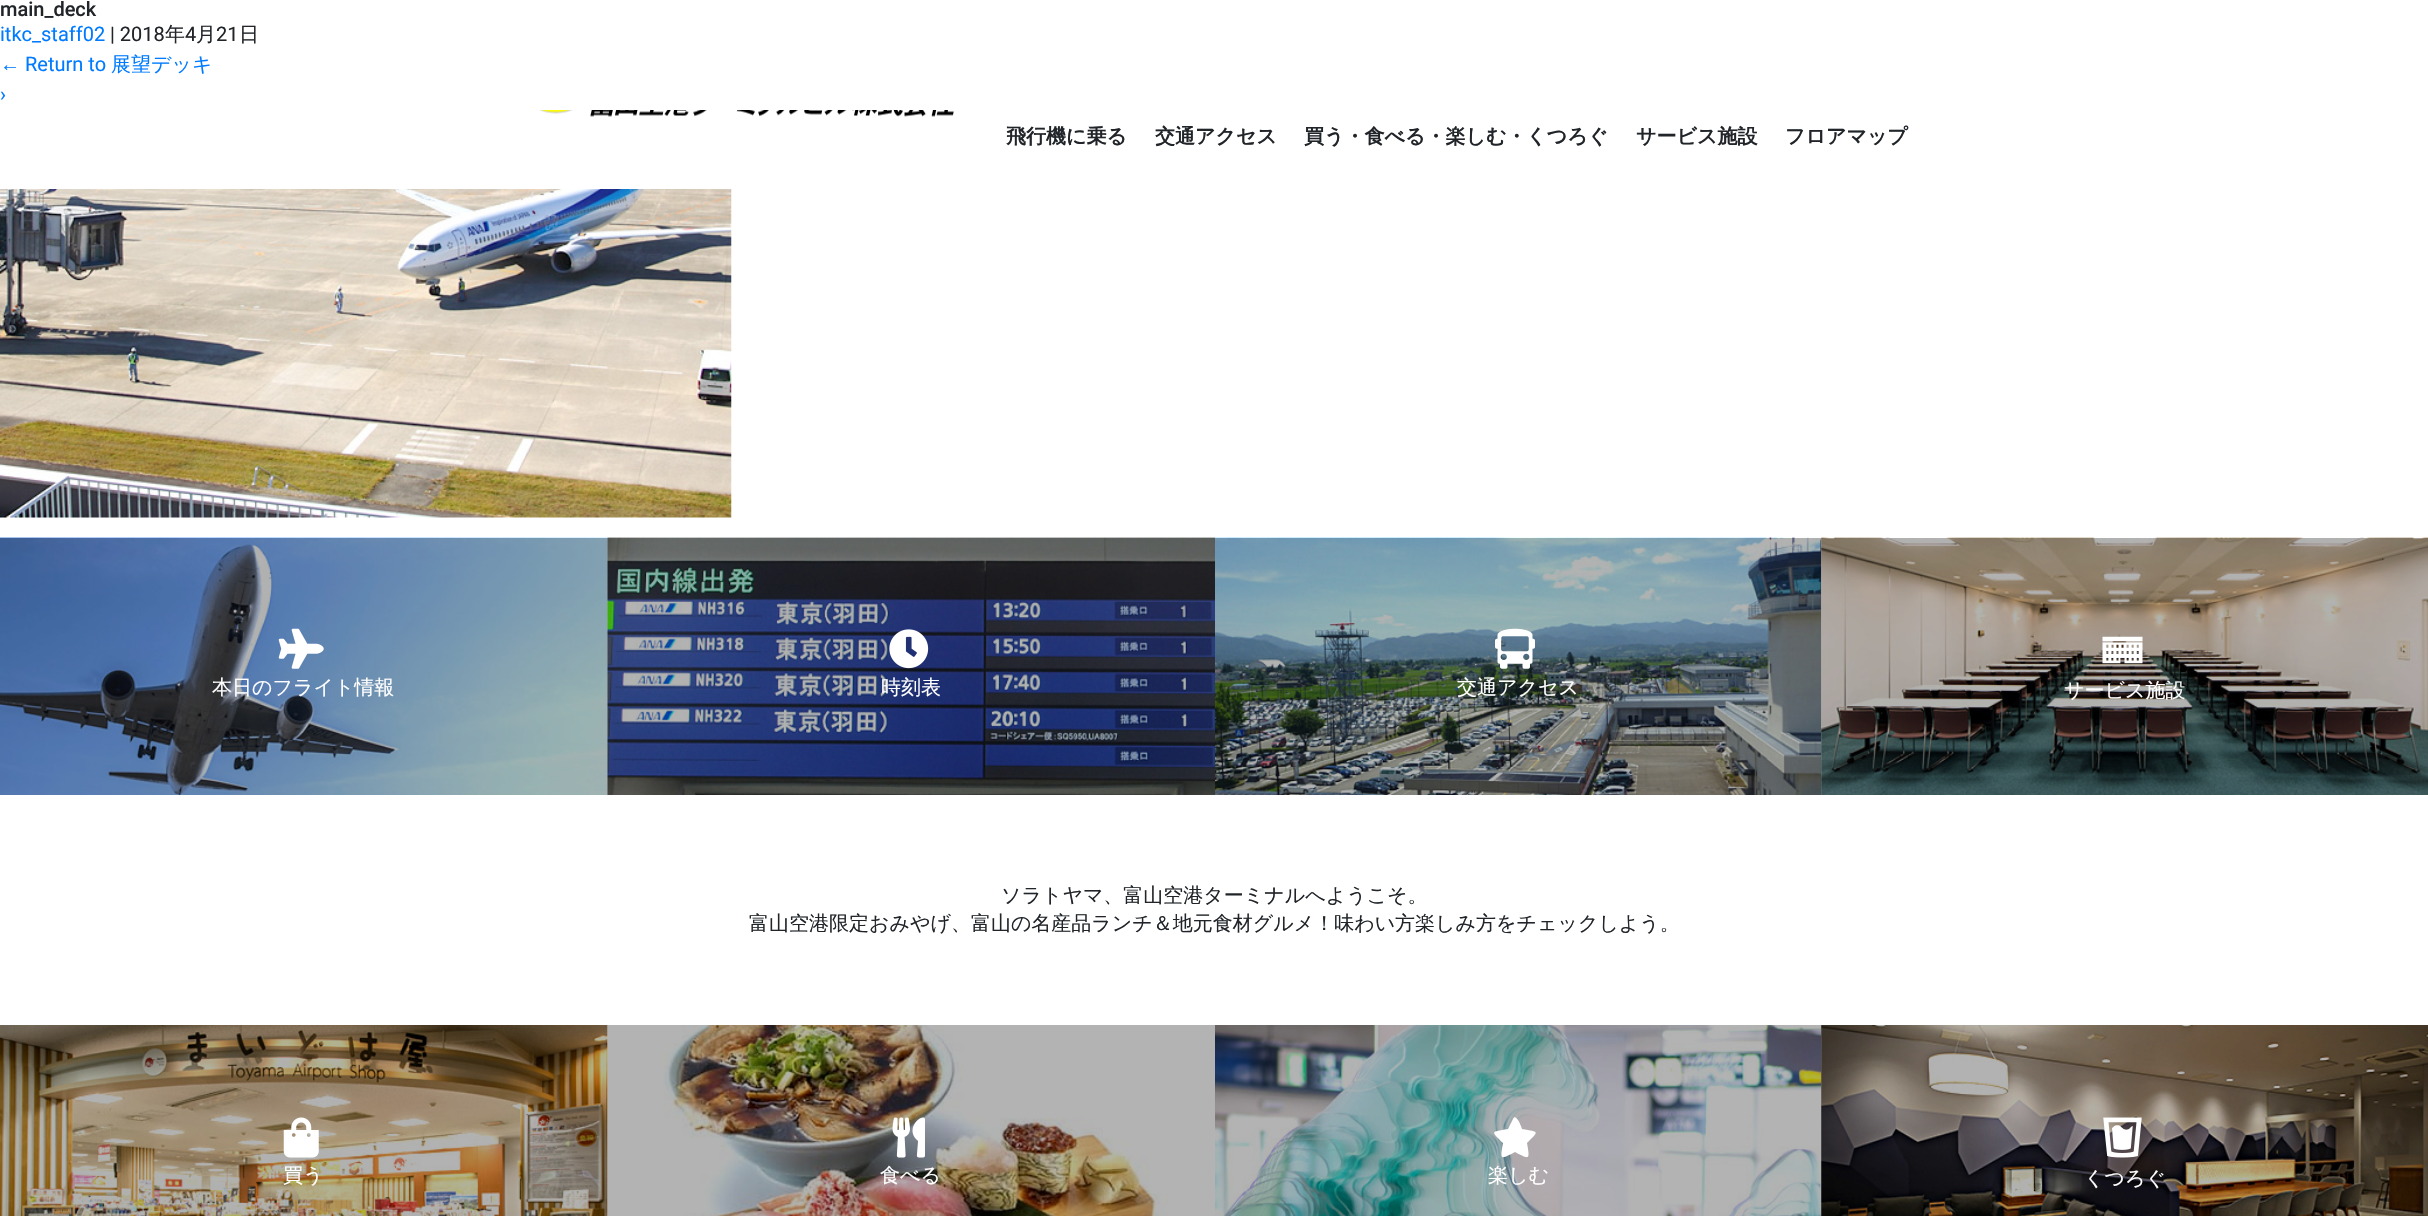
void draw(SkCanvas* canvas) {
  SkPaint paint;
  paint.setAntiAlias(true);
  auto face = [&](const char* family, int weight, float size, bool italic = false) {
    SkFontStyle style(weight, SkFontStyle::kNormal_Width,
      italic ? SkFontStyle::kItalic_Slant : SkFontStyle::kUpright_Slant);
    SkFont result(fontMgr->matchFamilyStyle(family, style), size);
    result.setSubpixel(true);
    return result;
  };
  auto paste = [&](const char* path, float x, float y, float w, float h) {
    auto image = SkImages::DeferredFromEncodedData(SkData::MakeFromFileName(path));
    canvas->drawImageRect(image, SkRect::MakeXYWH(x, y, w, h), SkSamplingOptions());
  };
  auto shape = [&](const char* data, bool evenOdd = false) {
    SkPath result = *SkParsePath::FromSVGString(data);
    if (evenOdd) result.setFillType(SkPathFillType::kEvenOdd);
    return result;
  };
  canvas->clear(0xffffffff);
  paint.setColor(0xffb3b3b3);
  canvas->drawRect(SkRect::MakeXYWH(1168, 1025, 47, 191), paint);
  paste("img/1.png", 0, 189, 732, 329);
  paste("img/2.png", 539, 110, 415, 7);
  paste("img/3.png", 0, 537, 608, 258);
  paste("img/5.png", 607, 537, 608, 258);
  paint.setColor(0x4d000000);
  canvas->drawRect(SkRect::MakeXYWH(0, 538, 608, 257), paint);
  paste("img/4.png", 278, 628, 46, 41);
  paste("img/6.png", 889, 629, 40, 40);
  paste("img/7.png", 1215, 537, 607, 258);
  paste("img/8.png", 1495, 628, 40, 41);
  paste("img/9.png", 1821, 537, 607, 258);
  canvas->drawRect(SkRect::MakeXYWH(1821, 538, 607, 257), paint);
  paste("img/10.png", 2102, 636, 41, 28);
  paste("img/11.png", 0, 1025, 608, 191);
  paste("img/13.png", 607, 1025, 561, 191);
  canvas->drawRect(SkRect::MakeXYWH(0, 1025, 608, 191), paint);
  paste("img/12.png", 283, 1117, 36, 41);
  paste("img/14.png", 892, 1117, 33, 41);
  paste("img/15.png", 1215, 1025, 607, 191);
  paint.setColor(0xffffffff);
  canvas->drawPath(shape("M1513 1119L1508 1129C1490 1132 1491 1131 1503 1143C1500 1160 1500 1160 1515 1152C1530 1160 1530 1160 1527 1143C1539 1131 1540 1132 1522 1129C1522 1128 1516 1112 1513 1119Z"), paint);
  paste("img/16.png", 1821, 1025, 607, 191);
  paint.setColor(0x4d000000);
  canvas->drawRect(SkRect::MakeXYWH(1821, 1025, 607, 191), paint);
  paste("img/17.png", 2103, 1117, 39, 41);
  auto f0 = face("Roboto", 500, 20);
  paint.setColor(0xff212529);
  canvas->drawString("main_deck", 0, 16, f0, paint);
  auto f1 = face("Roboto", 400, 20);
  paint.setColor(0xff007bff);
  canvas->drawString("itkc_staff02", 0, 41, f1, paint);
  paint.setColor(0xff212529);
  canvas->drawString("| 2018", 110, 41, f1, paint);
  auto f2 = face("WenQuanYi Zen Hei", 500, 20);
  canvas->drawString("年", 165, 41, f2, paint);
  canvas->drawString("4", 185, 41, f1, paint);
  canvas->drawString("月", 196, 41, f2, paint);
  canvas->drawString("21", 216, 41, f1, paint);
  canvas->drawString("日", 239, 41, f2, paint);
  auto f3 = face("Liberation Sans", 400, 20);
  paint.setColor(0xff007bff);
  canvas->drawString("←", 0, 71, f3, paint);
  canvas->drawString("Return to", 25, 71, f1, paint);
  canvas->drawString("展望デッキ", 111, 71, f2, paint);
  canvas->drawString("›", 0, 101, f1, paint);
  auto f4 = face("WenQuanYi Zen Hei", 700, 20);
  paint.setColor(0xff212529);
  {
    const struct { const char* s; float x, y; } items[] = {
      {"飛行機に乗る", 1006, 143},
      {"交通アクセス", 1155, 143},
      {"買う・食べる・楽しむ・くつろぐ", 1304, 143},
      {"サービス施設", 1636, 143},
      {"フロアマップ", 1785, 143},
    };
    for (auto [s, x, y] : items) {
      canvas->drawString(s, x, y, f4, paint);
    }
  }
  paint.setColor(0xffffffff);
  {
    const struct { const char* s; float x, y; } items[] = {
      {"本日のフライト情報", 212, 694},
      {"時刻表", 881, 694},
      {"交通アクセス", 1457, 694},
      {"サービス施設", 2064, 697},
    };
    for (auto [s, x, y] : items) {
      canvas->drawString(s, x, y, f2, paint);
    }
  }
  paint.setColor(0xff212529);
  canvas->drawString("ソラトヤマ、富山空港ターミナルへようこそ。", 1001, 902, f2, paint);
  canvas->drawString("富山空港限定おみやげ、富山の名産品ランチ＆地元食材グルメ！味わい方楽しみ方をチェックしよう。", 749, 930, f2, paint);
  paint.setColor(0xffffffff);
  {
    const struct { const char* s; float x, y; } items[] = {
      {"買う", 283, 1182},
      {"食べる", 880, 1182},
      {"楽しむ", 1488, 1182},
      {"くつろぐ", 2084, 1185},
    };
    for (auto [s, x, y] : items) {
      canvas->drawString(s, x, y, f2, paint);
    }
  }
}
